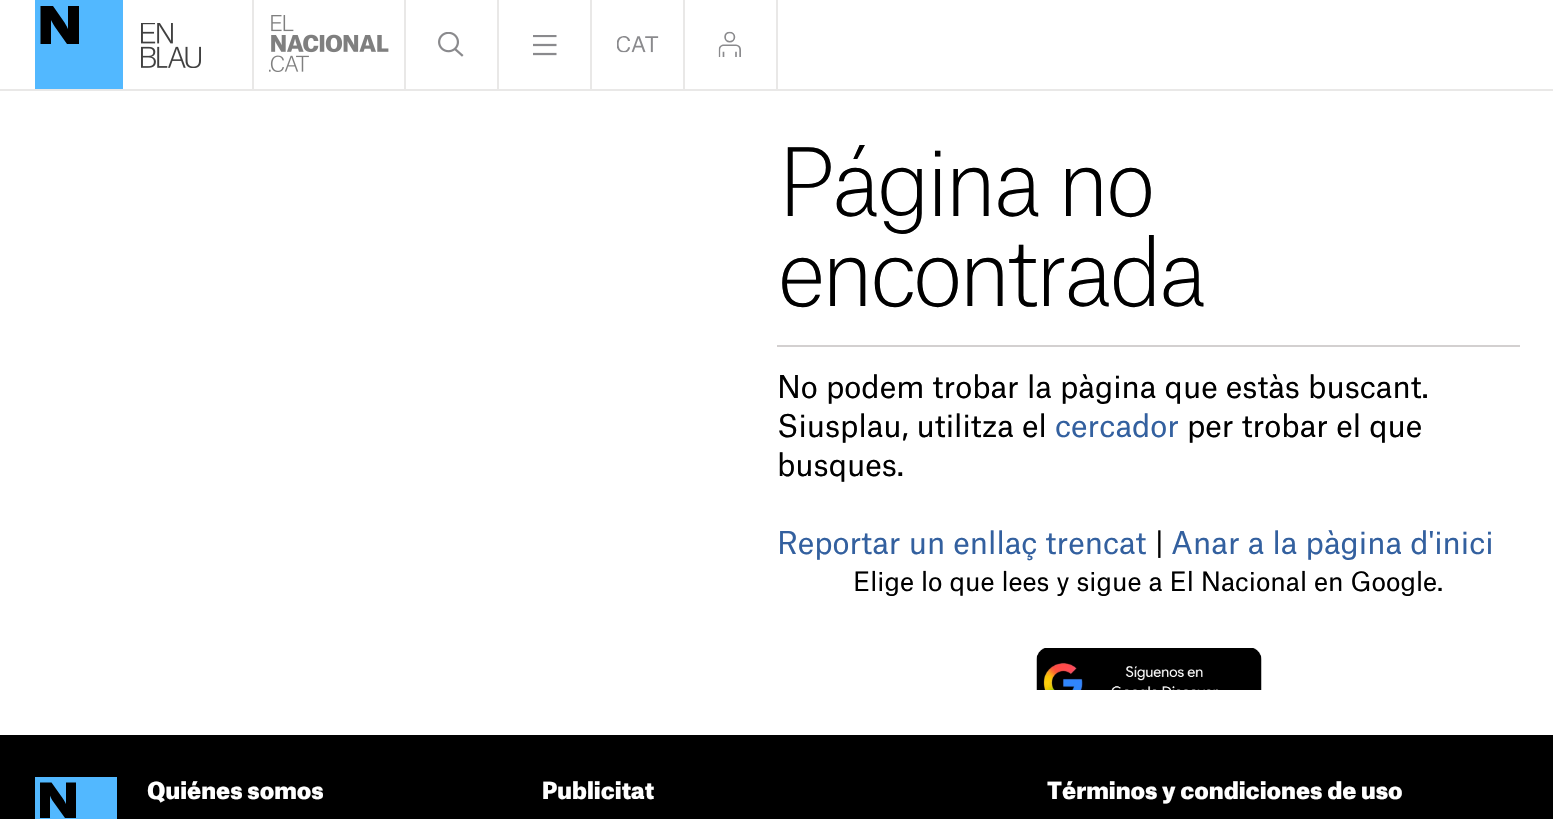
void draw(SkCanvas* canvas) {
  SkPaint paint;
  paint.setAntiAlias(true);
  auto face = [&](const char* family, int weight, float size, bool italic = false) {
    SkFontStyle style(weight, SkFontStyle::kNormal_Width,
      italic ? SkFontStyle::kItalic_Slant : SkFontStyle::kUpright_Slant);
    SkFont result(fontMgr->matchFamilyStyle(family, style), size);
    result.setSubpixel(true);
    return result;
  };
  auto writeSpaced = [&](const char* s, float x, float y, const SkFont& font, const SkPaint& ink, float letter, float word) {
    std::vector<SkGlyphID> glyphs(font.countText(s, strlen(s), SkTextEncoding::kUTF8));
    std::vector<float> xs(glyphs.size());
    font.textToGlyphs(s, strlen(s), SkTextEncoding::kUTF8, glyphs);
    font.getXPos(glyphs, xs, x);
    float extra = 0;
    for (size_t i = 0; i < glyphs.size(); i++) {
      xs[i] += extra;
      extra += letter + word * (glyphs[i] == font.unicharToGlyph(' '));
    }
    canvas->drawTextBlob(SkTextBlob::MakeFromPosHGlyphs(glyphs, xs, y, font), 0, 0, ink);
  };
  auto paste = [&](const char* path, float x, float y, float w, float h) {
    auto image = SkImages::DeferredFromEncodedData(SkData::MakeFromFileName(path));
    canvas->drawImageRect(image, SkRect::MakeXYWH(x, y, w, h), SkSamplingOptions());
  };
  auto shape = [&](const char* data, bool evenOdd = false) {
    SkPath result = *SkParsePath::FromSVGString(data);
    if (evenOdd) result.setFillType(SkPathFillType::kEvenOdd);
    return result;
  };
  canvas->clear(0xffffffff);
  paint.setColor(0xffe9e8e7);
  canvas->drawRect(SkRect::MakeXYWH(0, 89, 1553, 2), paint);
  paint.setColor(0xff52b8ff);
  canvas->drawRect(SkRect::MakeXYWH(35, 0, 88, 89), paint);
  paint.setColor(0xff000000);
  canvas->drawPath(shape("M40.5 44H51V20C51 20 52.5 23 55 27L67 44H79V6H68V29C68 29 67 26.5 64.5 22.5L53 6H40.5Z"), paint);
  paste("img/1.png", 141, 23, 60, 45);
  paint.setColor(0xffe9e8e7);
  canvas->drawRect(SkRect::MakeXYWH(252, 0, 2, 89), paint);
  paste("img/2.png", 269, 15, 120, 57);
  canvas->drawRect(SkRect::MakeXYWH(404, 0, 2, 89), paint);
  paste("img/3.png", 438, 32, 26, 25);
  canvas->drawRect(SkRect::MakeXYWH(497, 0, 2, 89), paint);
  paste("img/4.png", 533, 35, 24, 21);
  canvas->drawRect(SkRect::MakeXYWH(590, 0, 2, 89), paint);
  paste("img/5.png", 617, 36, 42, 17);
  canvas->drawRect(SkRect::MakeXYWH(776, 0, 2, 89), paint);
  canvas->drawRect(SkRect::MakeXYWH(683, 0, 2, 89), paint);
  paste("img/6.png", 718, 31, 23, 26);
  paint.setColor(0xffd3d0d0);
  canvas->drawRect(SkRect::MakeXYWH(777, 345, 743, 2), paint);
  paste("img/7.png", 1036, 648, 226, 42);
  paint.setColor(0xff000000);
  canvas->drawRect(SkRect::MakeXYWH(0, 735, 1553, 84), paint);
  paint.setColor(0xff52b8ff);
  canvas->drawRect(SkRect::MakeXYWH(35, 777, 82, 42), paint);
  paint.setColor(0xff000000);
  canvas->drawPath(shape("M40 818H50V795.5C50 795.5 51 798.5 53.5 802L65 818H76V782.5H66V804C66 804 65 801.5 62.5 798L51.5 782.5H40Z"), paint);
  auto f0 = face("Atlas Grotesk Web", 100, 90);
  writeSpaced("Página no", 777, 216, f0, paint, -4.5f, 0);
  writeSpaced("encontrada", 777, 306, f0, paint, -4.5f, 0);
  auto f1 = face("Atlas Grotesk Web", 400, 30);
  canvas->drawString("No podem trobar la pàgina que estàs buscant.", 777, 398, f1, paint);
  canvas->drawString("Siusplau, utilitza el", 777, 437, f1, paint);
  paint.setColor(0xff33609f);
  canvas->drawString("cercador", 1055, 437, f1, paint);
  paint.setColor(0xff000000);
  canvas->drawString("per trobar el que", 1187, 437, f1, paint);
  canvas->drawString("busques.", 777, 476, f1, paint);
  paint.setColor(0xff33609f);
  canvas->drawString("Reportar un enllaç trencat", 777, 554, f1, paint);
  paint.setColor(0xff000000);
  canvas->drawString("|", 1155, 554, f1, paint);
  paint.setColor(0xff33609f);
  canvas->drawString("Anar a la pàgina d'inici", 1171, 554, f1, paint);
  auto f2 = face("Atlas Grotesk Web", 400, 25.5f);
  paint.setColor(0xff000000);
  canvas->drawString("Elige lo que lees y sigue a El Nacional en Google.", 853, 591, f2, paint);
  auto f3 = face("Atlas Grotesk Web", 900, 22.5f);
  paint.setColor(0xffffffff);
  {
    const struct { const char* s; float x, y; } items[] = {
      {"Quiénes somos", 147, 799},
      {"Publicitat", 542, 799},
      {"Términos y condiciones de uso", 1047, 799},
    };
    for (auto [s, x, y] : items) {
      canvas->drawString(s, x, y, f3, paint);
    }
  }
}
